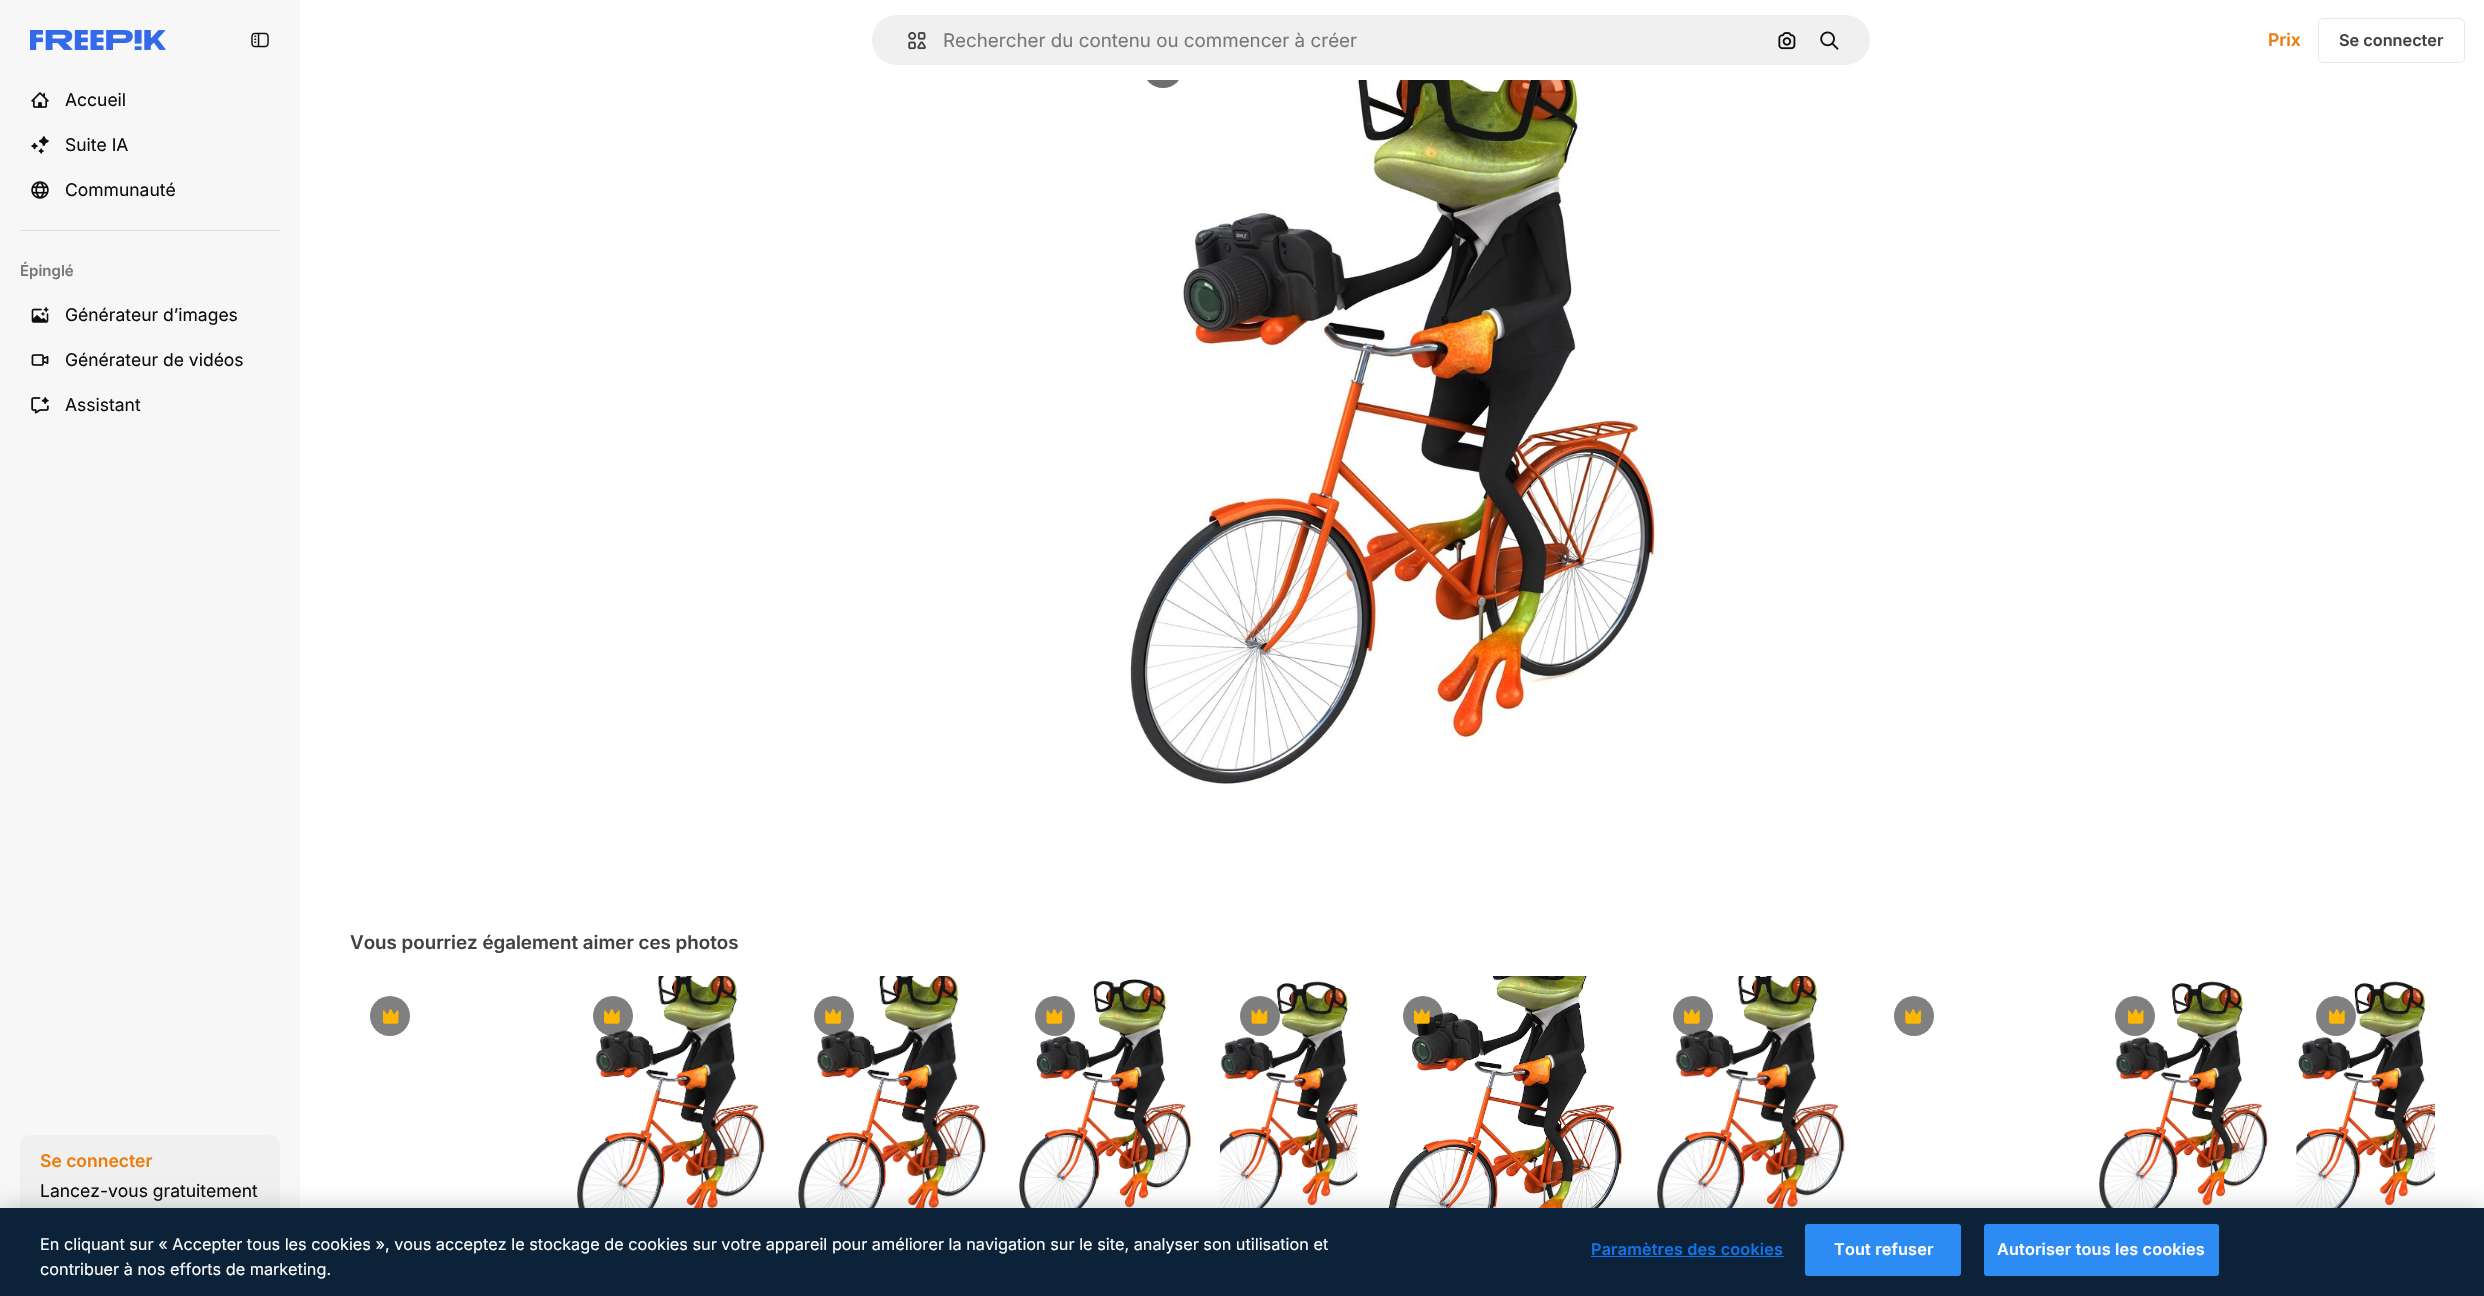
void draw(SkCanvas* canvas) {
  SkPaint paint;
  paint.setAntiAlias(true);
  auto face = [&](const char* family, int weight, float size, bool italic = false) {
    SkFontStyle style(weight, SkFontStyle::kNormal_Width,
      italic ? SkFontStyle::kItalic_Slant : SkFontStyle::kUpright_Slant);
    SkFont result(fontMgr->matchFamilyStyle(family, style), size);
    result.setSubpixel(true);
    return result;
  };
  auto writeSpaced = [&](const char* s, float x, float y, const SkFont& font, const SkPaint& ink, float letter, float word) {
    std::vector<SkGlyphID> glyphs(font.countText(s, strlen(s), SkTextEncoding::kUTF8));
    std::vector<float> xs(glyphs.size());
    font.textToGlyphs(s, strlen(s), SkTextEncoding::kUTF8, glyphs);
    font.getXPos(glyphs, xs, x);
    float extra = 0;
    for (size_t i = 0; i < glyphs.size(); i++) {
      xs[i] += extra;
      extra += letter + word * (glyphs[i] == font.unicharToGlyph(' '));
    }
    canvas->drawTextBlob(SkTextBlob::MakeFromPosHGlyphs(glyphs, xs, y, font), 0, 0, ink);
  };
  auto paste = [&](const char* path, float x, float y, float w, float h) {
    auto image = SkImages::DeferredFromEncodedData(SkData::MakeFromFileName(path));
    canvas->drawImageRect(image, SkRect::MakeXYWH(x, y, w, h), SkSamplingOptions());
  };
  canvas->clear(0xffffffff);
  paint.setColor(0xfff7f7f7);
  canvas->drawRect(SkRect::MakeXYWH(0, 0, 300, 1208), paint);
  paste("img/1.png", 30, 30, 136, 20);
  paste("img/2.png", 251, 32, 18, 16);
  paste("img/3.png", 31, 92, 18, 16);
  paste("img/4.png", 31, 136, 18, 18);
  paste("img/5.png", 31, 181, 18, 18);
  paint.setColor(0xffe0e0e0);
  canvas->drawRect(SkRect::MakeXYWH(20, 230, 260, 1), paint);
  paste("img/6.png", 31, 307, 18, 16);
  paste("img/7.png", 31, 354, 18, 12);
  paste("img/8.png", 31, 397, 18, 17);
  paint.setColor(0xfff0f0f0);
  canvas->drawRoundRect(SkRect::MakeXYWH(20, 1135, 260, 81), 10, 10, paint);
  paste("img/12.png", 1130, 80, 534, 704);
  paint.setColor(0xff6e6e6e);
  canvas->drawCircle(1163, 68, 20, paint);
  paint.setColor(0xffffffff);
  canvas->drawRect(SkRect::MakeXYWH(1143, 48, 40, 32), paint);
  paint.setColor(0xfff0f0f0);
  canvas->drawRoundRect(SkRect::MakeXYWH(871.5f, 14.5f, 999, 51), 25.5f, 25.5f, paint);
  paint.setStroke(true);
  paint.setStrokeWidth(1);
  paint.setColor(0xffffffff);
  canvas->drawRoundRect(SkRect::MakeXYWH(871.5f, 14.5f, 999, 51), 25.5f, 25.5f, paint);
  paste("img/9.png", 908, 31, 18, 19);
  paste("img/10.png", 1778, 32, 18, 18);
  paste("img/11.png", 1820, 31, 19, 19);
  paint.setColor(0xffe7e7e7);
  canvas->drawRoundRect(SkRect::MakeXYWH(2318.5f, 18.5f, 146, 44), 4.5f, 4.5f, paint);
  paint.setStroke(false);
  paint.setColor(0xff808080);
  canvas->drawCircle(390, 1016, 20, paint);
  paste("img/13.png", 383, 1009, 16, 15);
  paste("img/14.png", 577, 976, 188, 232);
  paint.setColor(0x80000000);
  canvas->drawCircle(613, 1016, 20, paint);
  paste("img/15.png", 604, 1009, 16, 15);
  paste("img/16.png", 798, 976, 188, 232);
  canvas->drawCircle(834, 1016, 20, paint);
  paste("img/17.png", 825, 1009, 16, 15);
  paste("img/18.png", 1019, 979, 172, 229);
  paint.setColor(0xff807f7f);
  canvas->drawCircle(1055, 1016, 20, paint);
  paste("img/19.png", 1046, 1009, 17, 15);
  paste("img/20.png", 1220, 981, 138, 227);
  paint.setColor(0x80000000);
  canvas->drawCircle(1260, 1016, 20, paint);
  paste("img/21.png", 1251, 1009, 17, 15);
  paste("img/22.png", 1388, 976, 235, 232);
  canvas->drawCircle(1423, 1016, 20, paint);
  paste("img/23.png", 1414, 1009, 16, 15);
  paste("img/24.png", 1657, 976, 188, 232);
  canvas->drawCircle(1693, 1016, 20, paint);
  paste("img/15.png", 1684, 1009, 16, 15);
  paint.setColor(0xff808080);
  canvas->drawCircle(1914, 1016, 20, paint);
  paste("img/25.png", 1905, 1009, 16, 15);
  paste("img/26.png", 2099, 981, 169, 227);
  canvas->drawCircle(2135, 1016, 20, paint);
  paste("img/13.png", 2128, 1009, 16, 15);
  paste("img/27.png", 2296, 981, 139, 227);
  canvas->drawCircle(2336, 1016, 20, paint);
  paste("img/28.png", 2329, 1009, 16, 15);
  paint.setColor(0x33000000);
  paint.setMaskFilter(SkMaskFilter::MakeBlur(kNormal_SkBlurStyle, 11));
  canvas->drawRect(SkRect::MakeXYWH(0, 1208, 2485, 88), paint);
  paint.setMaskFilter(nullptr);
  paint.setColor(0xff0b2239);
  canvas->drawRect(SkRect::MakeXYWH(0, 1208, 2484, 88), paint);
  paint.setColor(0xff1273eb);
  canvas->drawRect(SkRect::MakeXYWH(1591, 1256, 193, 1), paint);
  paint.setColor(0xff2c8cf4);
  canvas->drawRoundRect(SkRect::MakeXYWH(1805.5f, 1224.5f, 155, 51), 2, 2, paint);
  paint.setStroke(true);
  canvas->drawRoundRect(SkRect::MakeXYWH(1805.5f, 1224.5f, 155, 51), 2, 2, paint);
  paint.setStroke(false);
  canvas->drawRoundRect(SkRect::MakeXYWH(1984.5f, 1224.5f, 234, 51), 2, 2, paint);
  paint.setStroke(true);
  canvas->drawRoundRect(SkRect::MakeXYWH(1984.5f, 1224.5f, 234, 51), 2, 2, paint);
  auto f0 = face("Inter", 400, 17.5f);
  paint.setStroke(false);
  paint.setColor(0xff0d0d0d);
  {
    const struct { const char* s; float x, y; } items[] = {
      {"Accueil", 65, 106},
      {"Suite IA", 65, 151},
      {"Communauté", 65, 196},
    };
    for (auto [s, x, y] : items) {
      canvas->drawString(s, x, y, f0, paint);
    }
  }
  auto f1 = face("Inter", 600, 15);
  paint.setColor(0xff787878);
  canvas->drawString("Épinglé", 20, 276, f1, paint);
  paint.setColor(0xff0d0d0d);
  {
    const struct { const char* s; float x, y; } items[] = {
      {"Générateur d’images", 65, 321},
      {"Générateur de vidéos", 65, 366},
      {"Assistant", 65, 411},
    };
    for (auto [s, x, y] : items) {
      canvas->drawString(s, x, y, f0, paint);
    }
  }
  auto f2 = face("Inter", 600, 17.5f);
  paint.setColor(0xffea7e11);
  canvas->drawString("Se connecter", 40, 1167, f2, paint);
  paint.setColor(0xff0d0d0d);
  canvas->drawString("Lancez-vous gratuitement", 40, 1197, f0, paint);
  auto f3 = face("Inter", 400, 18.75f);
  paint.setColor(0xff787878);
  canvas->drawString("Rechercher du contenu ou commencer à créer", 943, 47, f3, paint);
  paint.setColor(0xffea7e11);
  canvas->drawString("Prix", 2268, 46, f2, paint);
  auto f4 = face("Inter", 600, 16.25f);
  paint.setColor(0xff424242);
  canvas->drawString("Se connecter", 2339, 46, f4, paint);
  auto f5 = face("Inter", 600, 18.75f);
  canvas->drawString("Vous pourriez également aimer ces photos", 350, 949, f5, paint);
  auto f6 = face("Inter", 400, 16.25f);
  paint.setColor(0xffffffff);
  canvas->drawString("En cliquant sur « Accepter tous les cookies », vous acceptez le stockage de cookies sur votre appareil pour améliorer la navigation sur le site, analyser son utilisation et", 40, 1250, f6, paint);
  canvas->drawString("contribuer à nos efforts de marketing.", 40, 1275, f6, paint);
  paint.setColor(0xff1273eb);
  writeSpaced("Paramètres des cookies", 1591, 1255, f4, paint, 0.15f, 0);
  paint.setColor(0xffffffff);
  writeSpaced("Tout refuser", 1834, 1255, f4, paint, 0.15f, 0);
  writeSpaced("Autoriser tous les cookies", 1997, 1255, f4, paint, 0.15f, 0);
}
